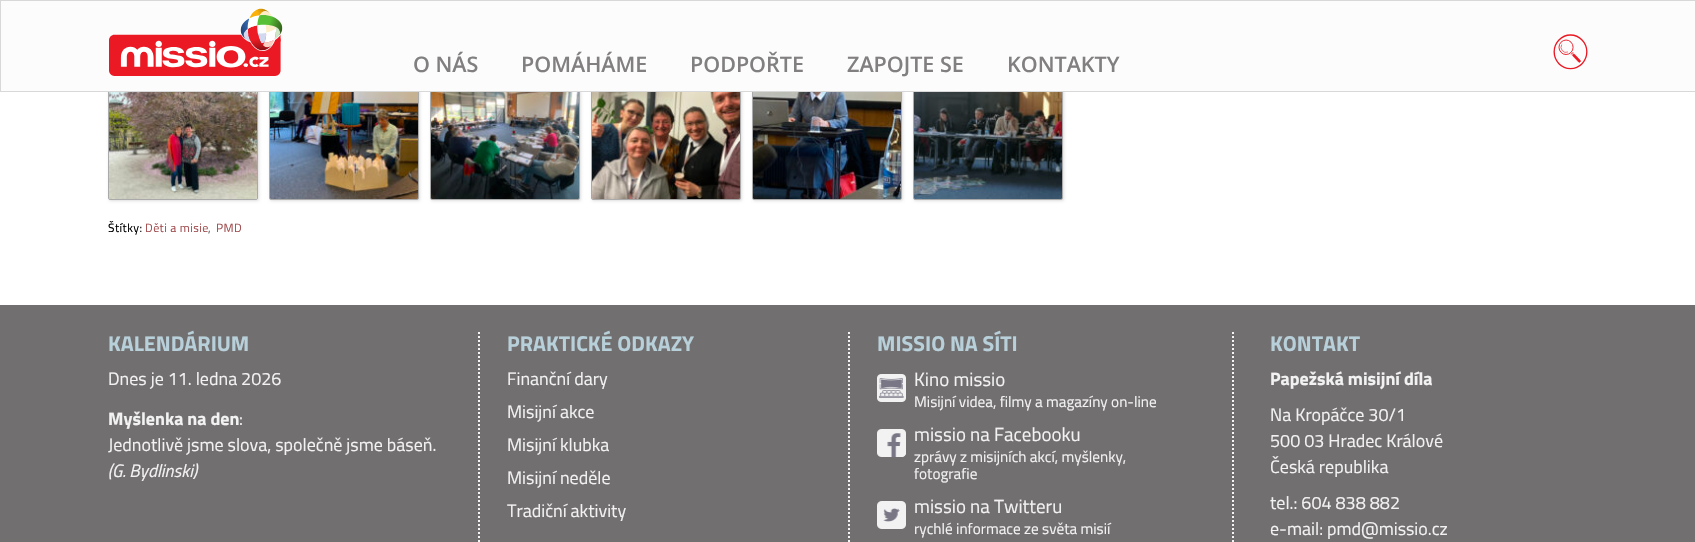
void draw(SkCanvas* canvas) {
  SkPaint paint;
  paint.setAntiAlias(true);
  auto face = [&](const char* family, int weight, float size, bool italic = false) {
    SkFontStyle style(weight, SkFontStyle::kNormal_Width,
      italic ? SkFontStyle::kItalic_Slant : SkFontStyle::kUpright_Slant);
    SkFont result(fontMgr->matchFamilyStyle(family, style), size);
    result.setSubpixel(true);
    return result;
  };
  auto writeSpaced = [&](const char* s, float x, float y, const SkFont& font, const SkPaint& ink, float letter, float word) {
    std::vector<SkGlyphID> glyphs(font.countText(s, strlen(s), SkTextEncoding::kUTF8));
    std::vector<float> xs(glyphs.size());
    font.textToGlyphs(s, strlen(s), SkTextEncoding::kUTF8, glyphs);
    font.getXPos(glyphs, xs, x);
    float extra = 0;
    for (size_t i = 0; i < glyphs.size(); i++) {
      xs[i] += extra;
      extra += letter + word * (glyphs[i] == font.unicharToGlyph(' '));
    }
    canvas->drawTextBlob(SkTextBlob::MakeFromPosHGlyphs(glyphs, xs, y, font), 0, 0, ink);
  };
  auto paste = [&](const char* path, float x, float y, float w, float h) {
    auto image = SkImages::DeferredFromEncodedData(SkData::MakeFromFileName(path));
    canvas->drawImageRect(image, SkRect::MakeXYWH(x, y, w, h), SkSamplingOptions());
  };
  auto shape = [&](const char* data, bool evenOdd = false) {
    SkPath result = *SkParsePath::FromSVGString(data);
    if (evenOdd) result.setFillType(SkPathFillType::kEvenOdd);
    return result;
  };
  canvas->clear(0xff726f70);
  paint.setColor(0xffffffff);
  canvas->drawRect(SkRect::MakeXYWH(0, 92, 1695, 213), paint);
  paint.setColor(0xffdedede);
  paint.setMaskFilter(SkMaskFilter::MakeBlur(kNormal_SkBlurStyle, 1.5f));
  canvas->drawRoundRect(SkRect::MakeXYWH(109, 51, 150, 150), 2, 2, paint);
  paint.setMaskFilter(nullptr);
  paint.setStroke(true);
  paint.setStrokeWidth(1);
  paint.setColor(0xffaaaaaa);
  canvas->drawRoundRect(SkRect::MakeXYWH(108.5f, 50.5f, 149, 149), 1.5f, 1.5f, paint);
  paint.setStroke(false);
  paint.setColor(0xffdedede);
  paint.setMaskFilter(SkMaskFilter::MakeBlur(kNormal_SkBlurStyle, 1.5f));
  canvas->drawRoundRect(SkRect::MakeXYWH(270, 51, 150, 150), 2, 2, paint);
  paint.setMaskFilter(nullptr);
  paint.setStroke(true);
  paint.setColor(0xffaaaaaa);
  canvas->drawRoundRect(SkRect::MakeXYWH(269.5f, 50.5f, 149, 149), 1.5f, 1.5f, paint);
  paint.setStroke(false);
  paint.setColor(0xffdedede);
  paint.setMaskFilter(SkMaskFilter::MakeBlur(kNormal_SkBlurStyle, 1.5f));
  canvas->drawRoundRect(SkRect::MakeXYWH(431, 51, 150, 150), 2, 2, paint);
  paint.setMaskFilter(nullptr);
  paint.setStroke(true);
  paint.setColor(0xffaaaaaa);
  canvas->drawRoundRect(SkRect::MakeXYWH(430.5f, 50.5f, 149, 149), 1.5f, 1.5f, paint);
  paint.setStroke(false);
  paint.setColor(0xffdedede);
  paint.setMaskFilter(SkMaskFilter::MakeBlur(kNormal_SkBlurStyle, 1.5f));
  canvas->drawRoundRect(SkRect::MakeXYWH(592, 51, 150, 150), 2, 2, paint);
  paint.setMaskFilter(nullptr);
  paint.setStroke(true);
  paint.setColor(0xffaaaaaa);
  canvas->drawRoundRect(SkRect::MakeXYWH(591.5f, 50.5f, 149, 149), 1.5f, 1.5f, paint);
  paint.setStroke(false);
  paint.setColor(0xffdedede);
  paint.setMaskFilter(SkMaskFilter::MakeBlur(kNormal_SkBlurStyle, 1.5f));
  canvas->drawRoundRect(SkRect::MakeXYWH(753, 51, 150, 150), 2, 2, paint);
  paint.setMaskFilter(nullptr);
  paint.setStroke(true);
  paint.setColor(0xffaaaaaa);
  canvas->drawRoundRect(SkRect::MakeXYWH(752.5f, 50.5f, 149, 149), 1.5f, 1.5f, paint);
  paint.setStroke(false);
  paint.setColor(0xffdedede);
  paint.setMaskFilter(SkMaskFilter::MakeBlur(kNormal_SkBlurStyle, 1.5f));
  canvas->drawRoundRect(SkRect::MakeXYWH(914, 51, 150, 150), 2, 2, paint);
  paint.setMaskFilter(nullptr);
  paint.setStroke(true);
  paint.setColor(0xffaaaaaa);
  canvas->drawRoundRect(SkRect::MakeXYWH(913.5f, 50.5f, 149, 149), 1.5f, 1.5f, paint);
  paint.setStroke(false);
  paint.setColor(0xfffcfcfc);
  canvas->drawRect(SkRect::MakeXYWH(0.5f, 0.5f, 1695, 91), paint);
  paint.setStroke(true);
  paint.setColor(0xffd8d8d8);
  canvas->drawRect(SkRect::MakeXYWH(0.5f, 0.5f, 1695, 91), paint);
  paste("img/1.png", 109, 8, 174, 68);
  paste("img/2.png", 1553, 34, 35, 36);
  paste("img/3.png", 109, 92, 148, 107);
  paste("img/4.png", 270, 92, 148, 107);
  paste("img/5.png", 431, 92, 148, 107);
  paste("img/6.png", 592, 92, 148, 107);
  paste("img/7.png", 753, 92, 148, 107);
  paste("img/8.png", 914, 92, 148, 107);
  paint.setStrokeWidth(2);
  paint.setColor(0xfff4f4f4);
  paint.setPathEffect(SkDashPathEffect::Make({{2, 2}}, 0));
  canvas->drawPath(shape("M479 332V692"), paint);
  paint.setPathEffect(nullptr);
  paint.setPathEffect(SkDashPathEffect::Make({{2, 2}}, 0));
  canvas->drawPath(shape("M849 332V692"), paint);
  paint.setPathEffect(nullptr);
  paste("img/9.png", 877, 374, 29, 28);
  paste("img/10.png", 877, 429, 29, 28);
  paste("img/11.png", 877, 501, 29, 28);
  paint.setPathEffect(SkDashPathEffect::Make({{2, 2}}, 0));
  canvas->drawPath(shape("M1233 332V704"), paint);
  paint.setPathEffect(nullptr);
  auto f0 = face("Open Sans", 600, 21.5f);
  paint.setStroke(false);
  paint.setColor(0xff817f80);
  {
    const struct { const char* s; float x, y; } items[] = {
      {"O NÁS", 413, 72},
      {"POMÁHÁME", 521, 72},
      {"PODPOŘTE", 690, 72},
      {"ZAPOJTE SE", 847, 72},
      {"KONTAKTY", 1007, 72},
    };
    for (auto [s, x, y] : items) {
      canvas->drawString(s, x, y, f0, paint);
    }
  }
  auto f1 = face("Titillium Web", 400, 12);
  paint.setColor(0xff000000);
  writeSpaced("Štítky:", 108, 232, f1, paint, 0.4f, 0);
  paint.setColor(0xffa14e4f);
  writeSpaced("Děti a misie", 145, 232, f1, paint, 0.4f, 0);
  paint.setColor(0xff606060);
  writeSpaced(",", 208, 232, f1, paint, 0.4f, 0);
  paint.setColor(0xffa14e4f);
  writeSpaced("PMD", 216, 232, f1, paint, 0.4f, 0);
  auto f2 = face("Titillium Web", 700, 21.5f);
  paint.setColor(0xffb8d0da);
  canvas->drawString("KALENDÁRIUM", 108, 351, f2, paint);
  auto f3 = face("Titillium Web", 400, 18);
  paint.setColor(0xfff2f2f2);
  canvas->drawString("Dnes je 11. ledna 2026", 108, 385, f3, paint);
  auto f4 = face("Titillium Web", 700, 18);
  canvas->drawString("Myšlenka na den", 108, 425, f4, paint);
  canvas->drawString(":", 239, 425, f3, paint);
  canvas->drawString("Jednotlivě jsme slova, společně jsme báseň.", 108, 451, f3, paint);
  auto f5 = face("Titillium Web", 400, 18, true);
  canvas->drawString("(G. Bydlinski)", 108, 477, f5, paint);
  paint.setColor(0xffb8d0da);
  canvas->drawString("PRAKTICKÉ ODKAZY", 507, 351, f2, paint);
  paint.setColor(0xfff2f2f2);
  {
    const struct { const char* s; float x, y; } items[] = {
      {"Finanční dary", 507, 385},
      {"Misijní akce", 507, 418},
      {"Misijní klubka", 507, 451},
      {"Misijní neděle", 507, 484},
      {"Tradiční aktivity", 507, 517},
    };
    for (auto [s, x, y] : items) {
      canvas->drawString(s, x, y, f3, paint);
    }
  }
  paint.setColor(0xffb8d0da);
  canvas->drawString("MISSIO NA SÍTI", 877, 351, f2, paint);
  auto f6 = face("Titillium Web", 400, 19);
  paint.setColor(0xfff2f2f2);
  canvas->drawString("Kino missio", 914, 386, f6, paint);
  auto f7 = face("Titillium Web", 400, 15.25f);
  canvas->drawString("Misijní videa, filmy a magazíny on-line", 914, 407, f7, paint);
  canvas->drawString("missio na Facebooku", 914, 441, f6, paint);
  canvas->drawString("zprávy z misijních akcí, myšlenky,", 914, 462, f7, paint);
  canvas->drawString("fotografie", 914, 479, f7, paint);
  canvas->drawString("missio na Twitteru", 914, 513, f6, paint);
  canvas->drawString("rychlé informace ze světa misií", 914, 534, f7, paint);
  paint.setColor(0xffb8d0da);
  canvas->drawString("KONTAKT", 1270, 351, f2, paint);
  paint.setColor(0xfff2f2f2);
  canvas->drawString("Papežská misijní díla", 1270, 385, f4, paint);
  {
    const struct { const char* s; float x, y; } items[] = {
      {"Na Kropáčce 30/1", 1270, 421},
      {"500 03 Hradec Králové", 1270, 447},
      {"Česká republika", 1270, 473},
      {"tel.: 604 838 882", 1270, 509},
      {"e-mail:", 1270, 535},
      {"pmd@missio.cz", 1327, 535},
    };
    for (auto [s, x, y] : items) {
      canvas->drawString(s, x, y, f3, paint);
    }
  }
}
